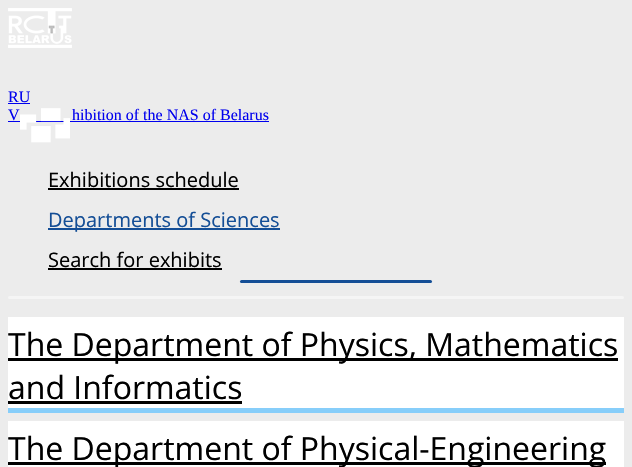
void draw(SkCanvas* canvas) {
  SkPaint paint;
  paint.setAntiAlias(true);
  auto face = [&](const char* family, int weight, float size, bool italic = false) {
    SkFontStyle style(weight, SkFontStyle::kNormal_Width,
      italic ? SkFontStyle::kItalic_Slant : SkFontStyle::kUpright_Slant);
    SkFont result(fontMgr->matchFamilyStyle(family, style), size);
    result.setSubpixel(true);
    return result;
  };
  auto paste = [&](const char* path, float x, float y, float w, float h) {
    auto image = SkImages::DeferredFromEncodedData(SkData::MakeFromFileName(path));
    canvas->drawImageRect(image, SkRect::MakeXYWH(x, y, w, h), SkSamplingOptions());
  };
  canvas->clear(0xffececec);
  paste("img/1.png", 8, 8, 64, 40);
  paint.setColor(0xff0000ee);
  canvas->drawRect(SkRect::MakeXYWH(8, 103, 22, 1), paint);
  canvas->drawRect(SkRect::MakeXYWH(8, 121, 261, 1), paint);
  paste("img/2.png", 20, 108, 50, 35);
  {
    const struct { float x, y, w, h; SkColor color; } items[] = {
      {48, 188, 191, 2, 0xff000000},
      {48, 228, 232, 2, 0xff144e96},
      {48, 268, 174, 2, 0xff000000},
    };
    for (auto [x, y, w, h, color] : items) {
      paint.setColor(color);
      canvas->drawRect(SkRect::MakeXYWH(x, y, w, h), paint);
    }
  }
  paint.setColor(0xff144e96);
  canvas->drawRoundRect(SkRect::MakeXYWH(240, 280, 192, 3), 1.5f, 1.5f, paint);
  paint.setColor(0xfff5f5f5);
  canvas->drawRoundRect(SkRect::MakeXYWH(8, 296, 616, 3), 1.5f, 1.5f, paint);
  {
    const struct { float x, y, w, h; SkColor color; } items[] = {
      {8, 317, 616, 91, 0xffffffff},
      {8, 408, 616, 5, 0xff87cefa},
      {8, 358, 610, 3, 0xff000000},
      {8, 401, 234, 3, 0xff000000},
      {8, 421, 616, 46, 0xffffffff},
      {8, 462, 598, 3, 0xff000000},
    };
    for (auto [x, y, w, h, color] : items) {
      paint.setColor(color);
      canvas->drawRect(SkRect::MakeXYWH(x, y, w, h), paint);
    }
  }
  auto f0 = face("Liberation Serif", 400, 16);
  paint.setColor(0xff0000ee);
  {
    const struct { const char* s; float x, y; } items[] = {
      {"RU", 8, 102},
      {"V", 8, 120},
      {"hibition of the NAS of Belarus", 72, 120},
    };
    for (auto [s, x, y] : items) {
      canvas->drawString(s, x, y, f0, paint);
    }
  }
  auto f1 = face("Open Sans", 400, 20);
  paint.setColor(0xff000000);
  canvas->drawString("Exhibitions schedule", 48, 187, f1, paint);
  paint.setColor(0xff144e96);
  canvas->drawString("Departments of Sciences", 48, 227, f1, paint);
  paint.setColor(0xff000000);
  canvas->drawString("Search for exhibits", 48, 267, f1, paint);
  auto f2 = face("Open Sans", 400, 32);
  {
    const struct { const char* s; float x, y; } items[] = {
      {"The Department of Physics, Mathematics", 8, 356},
      {"and Informatics", 8, 399},
      {"The Department of Physical-Engineering", 8, 460},
    };
    for (auto [s, x, y] : items) {
      canvas->drawString(s, x, y, f2, paint);
    }
  }
}
